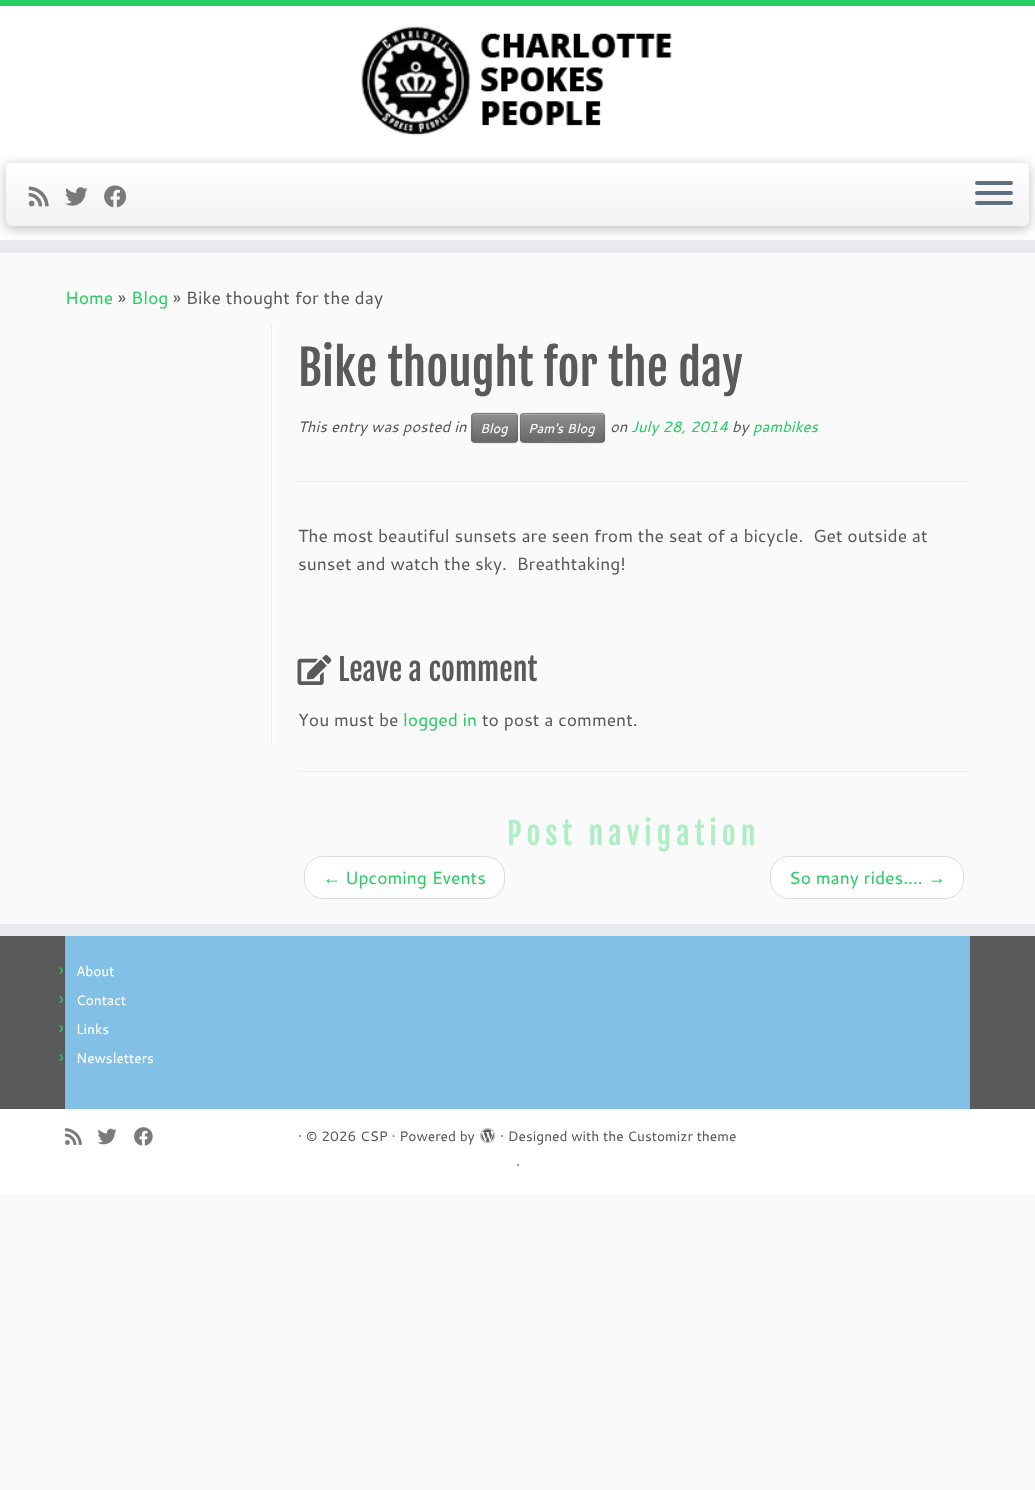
void draw(SkCanvas* canvas) {
  SkPaint paint;
  paint.setAntiAlias(true);
  auto face = [&](const char* family, int weight, float size, bool italic = false) {
    SkFontStyle style(weight, SkFontStyle::kNormal_Width,
      italic ? SkFontStyle::kItalic_Slant : SkFontStyle::kUpright_Slant);
    SkFont result(fontMgr->matchFamilyStyle(family, style), size);
    result.setSubpixel(true);
    return result;
  };
  auto writeSpaced = [&](const char* s, float x, float y, const SkFont& font, const SkPaint& ink, float letter, float word) {
    std::vector<SkGlyphID> glyphs(font.countText(s, strlen(s), SkTextEncoding::kUTF8));
    std::vector<float> xs(glyphs.size());
    font.textToGlyphs(s, strlen(s), SkTextEncoding::kUTF8, glyphs);
    font.getXPos(glyphs, xs, x);
    float extra = 0;
    for (size_t i = 0; i < glyphs.size(); i++) {
      xs[i] += extra;
      extra += letter + word * (glyphs[i] == font.unicharToGlyph(' '));
    }
    canvas->drawTextBlob(SkTextBlob::MakeFromPosHGlyphs(glyphs, xs, y, font), 0, 0, ink);
  };
  auto paste = [&](const char* path, float x, float y, float w, float h) {
    auto image = SkImages::DeferredFromEncodedData(SkData::MakeFromFileName(path));
    canvas->drawImageRect(image, SkRect::MakeXYWH(x, y, w, h), SkSamplingOptions());
  };
  auto shape = [&](const char* data, bool evenOdd = false) {
    SkPath result = *SkParsePath::FromSVGString(data);
    if (evenOdd) result.setFillType(SkPathFillType::kEvenOdd);
    return result;
  };
  canvas->clear(0xfffafafa);
  {
    const struct { float x, y, w, h; SkColor color; } items[] = {
      {0, 6, 1035, 234, 0xffffffff},
      {0, 0, 1035, 6, 0xff26ce61},
      {0, 240, 1035, 13, 0xffe9eaee},
    };
    for (auto [x, y, w, h, color] : items) {
      paint.setColor(color);
      canvas->drawRect(SkRect::MakeXYWH(x, y, w, h), paint);
    }
  }
  paste("img/1.png", 361, 26, 311, 110);
  paint.setColor(0x40000000);
  paint.setMaskFilter(SkMaskFilter::MakeBlur(kNormal_SkBlurStyle, 6));
  canvas->drawRoundRect(SkRect::MakeXYWH(6, 165, 1023, 64), 5, 5, paint);
  paint.setMaskFilter(nullptr);
  {
    const SkColor colors[] = {0xffffffff, 0xfff2f2f2};
    const float stops[] = {0, 1};
    const SkPoint ends[] = {{518, 162}, {518, 226}};
    paint.setShader(SkGradientShader::MakeLinear(ends, colors, stops, 2, SkTileMode::kClamp));
    paint.setAlpha(255);
  }
  canvas->drawRoundRect(SkRect::MakeXYWH(6, 163, 1023, 63), 5, 5, paint);
  paste("img/2.png", 28, 186, 21, 21);
  paste("img/3.png", 65, 187, 23, 19);
  paste("img/4.png", 104, 185, 23, 23);
  paint.setShader(nullptr);
  paint.setColor(0xff5f6f81);
  canvas->drawRoundRect(SkRect::MakeXYWH(975, 181, 38, 4), 2, 2, paint);
  canvas->drawRoundRect(SkRect::MakeXYWH(975, 191, 38, 4), 2, 2, paint);
  canvas->drawRoundRect(SkRect::MakeXYWH(975, 201, 38, 4), 2, 2, paint);
  paint.setColor(0xffeeeeee);
  canvas->drawRect(SkRect::MakeXYWH(271, 324, 1, 420), paint);
  paint.setColor(0xffffffff);
  canvas->drawRect(SkRect::MakeXYWH(273, 324, 1, 420), paint);
  paint.setColor(0x0d000000);
  paint.setMaskFilter(SkMaskFilter::MakeBlur(kNormal_SkBlurStyle, 1));
  canvas->drawRoundRect(SkRect::MakeXYWH(471, 414, 47, 30), 4, 4, paint);
  paint.setMaskFilter(nullptr);
  paint.setColor(0xff808080);
  canvas->drawRoundRect(SkRect::MakeXYWH(471, 413, 47, 30), 4, 4, paint);
  canvas->save();
  canvas->clipPath(shape("M475 413H514C516 413 518 415 518 417V439C518 441 516 443 514 443H475C473 443 471 441 471 439V417C471 415 473 413 475 413Z"), true);
  {
    const SkColor colors[] = {0xff8f8f8f, 0xff696969};
    const float stops[] = {0, 1};
    const SkPoint ends[] = {{494, 414}, {494, 441}};
    paint.setShader(SkGradientShader::MakeLinear(ends, colors, stops, 2, SkTileMode::kClamp));
    paint.setAlpha(255);
  }
  canvas->drawRect(SkRect::MakeXYWH(471, 414, 47, 27), paint);
  canvas->restore();
  paint.setShader(nullptr);
  paint.setColor(0xffa5a5a5);
  canvas->drawPath(shape("M475 415H514C515 415 516 416 516 418V416C516 415 515 414 514 414H476C474 414 473 415 473 416Z"), paint);
  paint.setStroke(true);
  paint.setStrokeWidth(1.2f);
  paint.setColor(0xff606060);
  canvas->drawPath(shape("M516 441L514 442H475L473 441"), paint);
  paint.setColor(0x1a000000);
  canvas->drawPath(shape("M473 441C470.5 439 472 430 472 427.5C472 414 469 413 481.5 413H507.5C520 413 517 414 517 427.5C517 430 518 439 516 441"), paint);
  paint.setStroke(false);
  paint.setColor(0x0d000000);
  paint.setMaskFilter(SkMaskFilter::MakeBlur(kNormal_SkBlurStyle, 1));
  canvas->drawRoundRect(SkRect::MakeXYWH(520, 414, 85, 30), 4, 4, paint);
  paint.setMaskFilter(nullptr);
  paint.setColor(0xff808080);
  canvas->drawRoundRect(SkRect::MakeXYWH(520, 413, 85, 30), 4, 4, paint);
  canvas->save();
  canvas->clipPath(shape("M524 413H601C603 413 605 415 605 417V439C605 441 603 443 601 443H524C522 443 520 441 520 439V417C520 415 522 413 524 413Z"), true);
  {
    const SkColor colors[] = {0xff8f8f8f, 0xff696969};
    const float stops[] = {0, 1};
    const SkPoint ends[] = {{563, 414}, {563, 441}};
    paint.setShader(SkGradientShader::MakeLinear(ends, colors, stops, 2, SkTileMode::kClamp));
    paint.setAlpha(255);
  }
  canvas->drawRect(SkRect::MakeXYWH(520, 414, 85, 27), paint);
  canvas->restore();
  paint.setShader(nullptr);
  paint.setColor(0x33ffffff);
  canvas->drawPath(shape("M524 415H601C603 415 604 416 604 418C604 410 594 414 588 414H536C531 414 521 410 521 418C521 416 522 415 524 415Z"), paint);
  paint.setStroke(true);
  paint.setColor(0xff606060);
  canvas->drawPath(shape("M603.5 441L601 442H588.5C581 442 524 443 522 441H521.5"), paint);
  paint.setColor(0x1a000000);
  canvas->drawPath(shape("M521.5 441C519.5 438.5 520.5 434 520.5 431C520.5 411 516.5 413 536.5 413H588.5C607 413 604.5 410 604.5 427.5C604.5 430 605.5 439 603.5 441"), paint);
  paint.setStroke(false);
  paint.setColor(0xffeeeeee);
  canvas->drawRect(SkRect::MakeXYWH(298, 481, 672, 1), paint);
  paint.setColor(0xffffffff);
  canvas->drawRect(SkRect::MakeXYWH(298, 483, 672, 1), paint);
  paste("img/5.png", 297, 655, 35, 30);
  paint.setColor(0xffeeeeee);
  canvas->drawRect(SkRect::MakeXYWH(298, 771, 672, 1), paint);
  paint.setColor(0xffffffff);
  canvas->drawRect(SkRect::MakeXYWH(298, 773, 672, 1), paint);
  canvas->drawRoundRect(SkRect::MakeXYWH(304.5f, 856.5f, 200, 42), 18.5f, 18.5f, paint);
  paint.setStroke(true);
  paint.setStrokeWidth(1);
  paint.setColor(0xffdddddd);
  canvas->drawRoundRect(SkRect::MakeXYWH(304.5f, 856.5f, 200, 42), 18.5f, 18.5f, paint);
  paint.setStroke(false);
  paint.setColor(0xffffffff);
  canvas->drawRoundRect(SkRect::MakeXYWH(770.5f, 856.5f, 193, 42), 18.5f, 18.5f, paint);
  paint.setStroke(true);
  paint.setColor(0xffdddddd);
  canvas->drawRoundRect(SkRect::MakeXYWH(770.5f, 856.5f, 193, 42), 18.5f, 18.5f, paint);
  paint.setStroke(false);
  {
    const struct { float x, y, w, h; SkColor color; } items[] = {
      {0, 936, 1035, 173, 0xff5a5a5a},
      {0, 924, 1035, 12, 0xffe9eaee},
      {65, 936, 905, 173, 0xff83c0e5},
      {0, 1109, 1035, 85, 0xffffffff},
    };
    for (auto [x, y, w, h, color] : items) {
      paint.setColor(color);
      canvas->drawRect(SkRect::MakeXYWH(x, y, w, h), paint);
    }
  }
  paste("img/6.png", 65, 1128, 17, 17);
  paste("img/7.png", 97, 1128, 20, 17);
  paste("img/8.png", 134, 1127, 19, 19);
  paste("img/9.png", 480, 1128, 15, 15);
  auto f0 = face("Cantarell", 400, 17.5f);
  paint.setColor(0xff26ce61);
  canvas->drawString("Home", 65, 304, f0, paint);
  paint.setColor(0xff5a5a5a);
  canvas->drawString("»", 118, 304, f0, paint);
  paint.setColor(0xff26ce61);
  canvas->drawString("Blog", 131, 304, f0, paint);
  paint.setColor(0xff5a5a5a);
  canvas->drawString("» Bike thought for the day", 173, 304, f0, paint);
  auto f1 = face("Fjalla One", 400, 47.5f);
  canvas->drawString("Bike thought for the day", 298, 386, f1, paint);
  auto f2 = face("Cantarell", 400, 15, true);
  canvas->drawString("This entry was posted in", 298, 432, f2, paint);
  auto f3 = face("Cantarell", 400, 13, true);
  paint.setColor(0xffffffff);
  canvas->drawString("Blog", 480, 433, f3, paint);
  canvas->drawString("Pam's Blog", 528, 433, f3, paint);
  paint.setColor(0xff5a5a5a);
  canvas->drawString("on", 610, 432, f2, paint);
  paint.setColor(0xff26ce61);
  canvas->drawString("July 28, 2014", 631, 432, f2, paint);
  paint.setColor(0xff5a5a5a);
  canvas->drawString("by", 732, 432, f2, paint);
  paint.setColor(0xff26ce61);
  canvas->drawString("pambikes", 753, 432, f2, paint);
  paint.setColor(0xff5a5a5a);
  canvas->drawString("The most beautiful sunsets are seen from the seat of a bicycle.  Get outside at", 298, 542, f0, paint);
  canvas->drawString("sunset and watch the sky.  Breathtaking!", 298, 570, f0, paint);
  auto f4 = face("Fjalla One", 400, 30);
  canvas->drawString("Leave a comment", 338, 681, f4, paint);
  canvas->drawString("You must be", 298, 726, f0, paint);
  paint.setColor(0xff26ce61);
  canvas->drawString("logged in", 403, 726, f0, paint);
  paint.setColor(0xff5a5a5a);
  canvas->drawString("to post a comment.", 482, 726, f0, paint);
  paint.setColor(0xffadeec4);
  writeSpaced("Post navigation", 507, 845, f4, paint, 5, 0);
  auto f5 = face("Liberation Serif", 400, 17.5f);
  paint.setColor(0xff26ce61);
  canvas->drawString("←", 323, 884, f5, paint);
  canvas->drawString("Upcoming Events", 345, 884, f0, paint);
  canvas->drawString("So many rides….", 789, 884, f0, paint);
  canvas->drawString("→", 928, 884, f5, paint);
  canvas->drawString("›", 59, 976, f0, paint);
  auto f6 = face("Cantarell", 400, 13.75f);
  paint.setColor(0xffffffff);
  canvas->drawString("About", 76, 976, f6, paint);
  paint.setColor(0xff26ce61);
  canvas->drawString("›", 59, 1005, f0, paint);
  paint.setColor(0xffffffff);
  canvas->drawString("Contact", 76, 1005, f6, paint);
  paint.setColor(0xff26ce61);
  canvas->drawString("›", 59, 1034, f0, paint);
  paint.setColor(0xffffffff);
  canvas->drawString("Links", 76, 1034, f6, paint);
  paint.setColor(0xff26ce61);
  canvas->drawString("›", 59, 1063, f0, paint);
  paint.setColor(0xffffffff);
  canvas->drawString("Newsletters", 76, 1063, f6, paint);
  paint.setColor(0xff5a5a5a);
  {
    const struct { const char* s; float x, y; } items[] = {
      {"· © 2026 CSP · Powered by", 298, 1141},
      {"· Designed with the Customizr theme", 500, 1141},
      {"·", 516, 1170},
    };
    for (auto [s, x, y] : items) {
      canvas->drawString(s, x, y, f6, paint);
    }
  }
}
